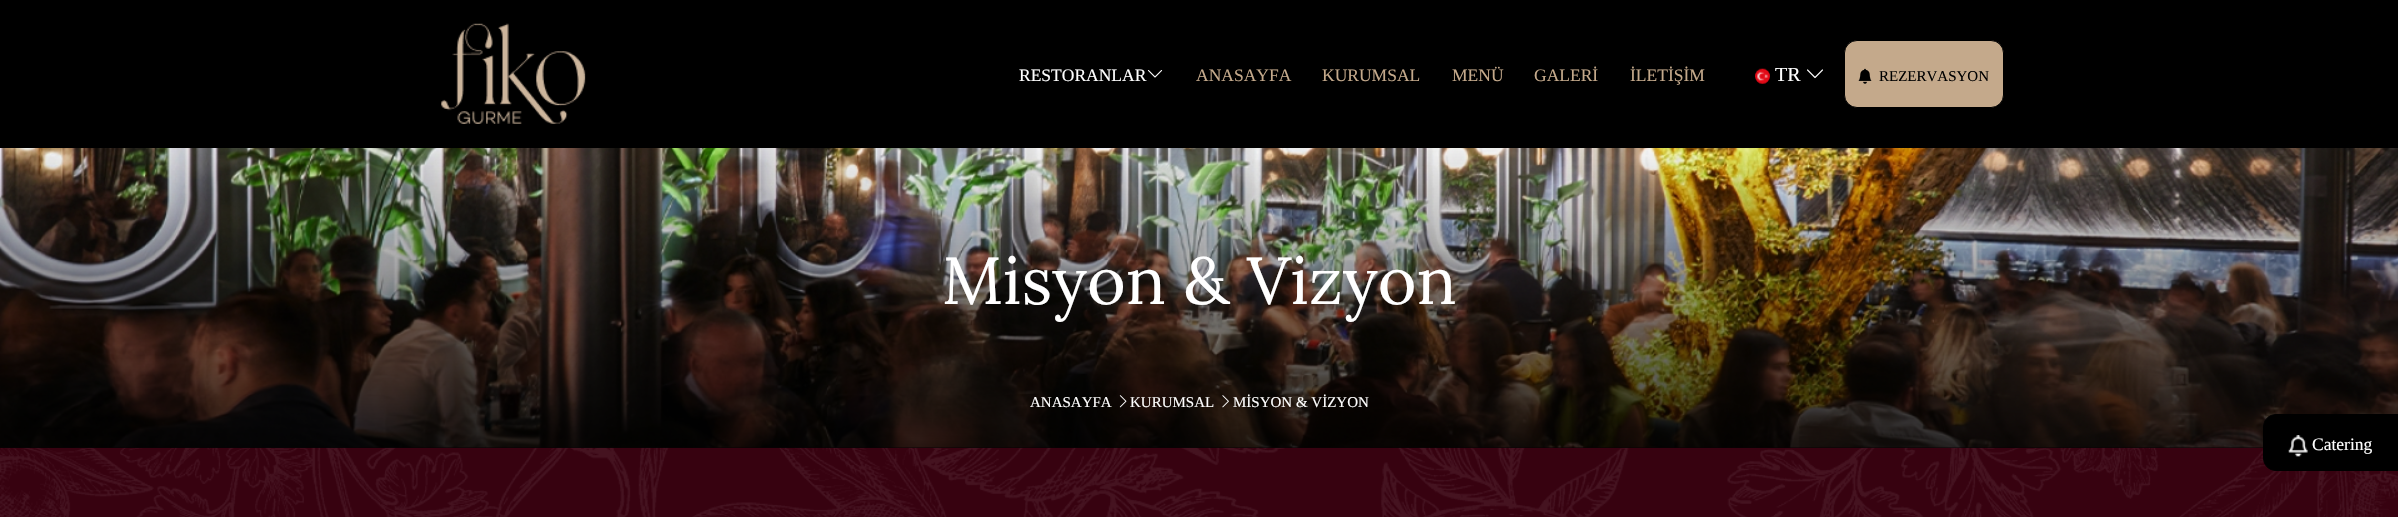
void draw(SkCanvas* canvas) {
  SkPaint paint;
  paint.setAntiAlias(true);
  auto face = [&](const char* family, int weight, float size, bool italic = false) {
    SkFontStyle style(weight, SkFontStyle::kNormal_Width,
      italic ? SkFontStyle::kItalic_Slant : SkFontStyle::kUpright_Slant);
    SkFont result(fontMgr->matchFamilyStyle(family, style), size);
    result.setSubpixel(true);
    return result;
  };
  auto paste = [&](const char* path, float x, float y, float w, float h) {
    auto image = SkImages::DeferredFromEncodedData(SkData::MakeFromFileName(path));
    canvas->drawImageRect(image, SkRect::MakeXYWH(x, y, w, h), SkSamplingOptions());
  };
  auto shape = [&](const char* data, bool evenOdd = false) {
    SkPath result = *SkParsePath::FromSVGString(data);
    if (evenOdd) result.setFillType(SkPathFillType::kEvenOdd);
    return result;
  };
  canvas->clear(0xff370210);
  paste("img/1.png", 0, 447, 2398, 70);
  paint.setColor(0xff000000);
  canvas->drawRect(SkRect::MakeXYWH(0, 0, 2398, 148), paint);
  paste("img/2.png", 441, 23, 145, 101);
  paste("img/3.png", 1147, 70, 16, 8);
  paste("img/4.png", 1755, 68, 15, 16);
  paste("img/5.png", 1807, 69, 16, 10);
  paint.setColor(0xffc4a98b);
  canvas->drawRoundRect(SkRect::MakeXYWH(1844.5f, 40.5f, 159, 67), 12.5f, 12.5f, paint);
  paint.setStroke(true);
  paint.setStrokeWidth(1);
  paint.setColor(0xff000000);
  canvas->drawRoundRect(SkRect::MakeXYWH(1844.5f, 40.5f, 159, 67), 12.5f, 12.5f, paint);
  paste("img/6.png", 1858, 68, 14, 16);
  paste("img/7.png", 0, 148, 2398, 300);
  paint.setStroke(false);
  {
    const SkColor colors[] = {0x00000000, 0xcc000000};
    const float stops[] = {0, 1};
    const SkPoint ends[] = {{1199, 135}, {1199, 448}};
    paint.setShader(SkGradientShader::MakeLinear(ends, colors, stops, 2, SkTileMode::kClamp));
    paint.setAlpha(255);
  }
  canvas->drawRect(SkRect::MakeXYWH(0, 148, 2398, 300), paint);
  paste("img/8.png", 1119, 395, 8, 13);
  paste("img/9.png", 1222, 395, 7, 13);
  paint.setShader(nullptr);
  paint.setColor(0xff000000);
  canvas->drawPath(shape("M2276 414.5H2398.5V470.5H2276C2269 470.5 2263.5 465 2263.5 458V427C2263.5 420 2269 414.5 2276 414.5Z"), paint);
  paint.setStroke(true);
  canvas->drawPath(shape("M2276 414.5H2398.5V470.5H2276C2269 470.5 2263.5 465 2263.5 458V427C2263.5 420 2269 414.5 2276 414.5Z"), paint);
  paste("img/10.png", 2288, 435, 20, 22);
  auto f0 = face("Liberation Serif", 400, 17.5f);
  paint.setStroke(false);
  paint.setColor(0xffffffff);
  canvas->drawString("RESTORANLAR", 1019, 81, f0, paint);
  paint.setColor(0xffc4a98b);
  {
    const struct { const char* s; float x, y; } items[] = {
      {"ANASAYFA", 1196, 81},
      {"KURUMSAL", 1322, 81},
      {"MENÜ", 1452, 81},
      {"GALERİ", 1534, 81},
      {"İLETİŞİM", 1630, 81},
    };
    for (auto [s, x, y] : items) {
      canvas->drawString(s, x, y, f0, paint);
    }
  }
  auto f1 = face("Liberation Serif", 400, 20);
  paint.setColor(0xffffffff);
  canvas->drawString("TR", 1775, 81, f1, paint);
  auto f2 = face("Liberation Serif", 400, 15);
  paint.setColor(0xff000000);
  canvas->drawString("REZERVASYON", 1879, 81, f2, paint);
  auto f3 = face("Lora", 400, 66.25f);
  paint.setColor(0xffffffff);
  canvas->drawString("Misyon & Vizyon", 942, 304, f3, paint);
  {
    const struct { const char* s; float x, y; } items[] = {
      {"ANASAYFA", 1030, 407},
      {"KURUMSAL", 1130, 407},
      {"MİSYON & VİZYON", 1233, 407},
    };
    for (auto [s, x, y] : items) {
      canvas->drawString(s, x, y, f2, paint);
    }
  }
  canvas->drawString("Catering", 2312, 450, f0, paint);
}
